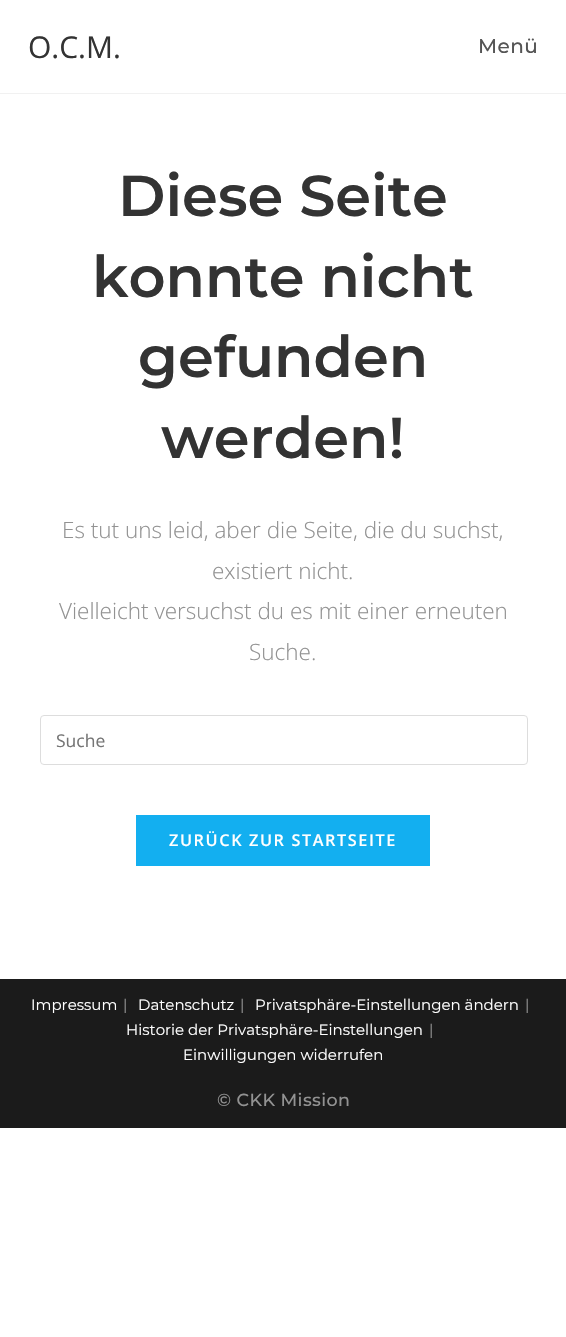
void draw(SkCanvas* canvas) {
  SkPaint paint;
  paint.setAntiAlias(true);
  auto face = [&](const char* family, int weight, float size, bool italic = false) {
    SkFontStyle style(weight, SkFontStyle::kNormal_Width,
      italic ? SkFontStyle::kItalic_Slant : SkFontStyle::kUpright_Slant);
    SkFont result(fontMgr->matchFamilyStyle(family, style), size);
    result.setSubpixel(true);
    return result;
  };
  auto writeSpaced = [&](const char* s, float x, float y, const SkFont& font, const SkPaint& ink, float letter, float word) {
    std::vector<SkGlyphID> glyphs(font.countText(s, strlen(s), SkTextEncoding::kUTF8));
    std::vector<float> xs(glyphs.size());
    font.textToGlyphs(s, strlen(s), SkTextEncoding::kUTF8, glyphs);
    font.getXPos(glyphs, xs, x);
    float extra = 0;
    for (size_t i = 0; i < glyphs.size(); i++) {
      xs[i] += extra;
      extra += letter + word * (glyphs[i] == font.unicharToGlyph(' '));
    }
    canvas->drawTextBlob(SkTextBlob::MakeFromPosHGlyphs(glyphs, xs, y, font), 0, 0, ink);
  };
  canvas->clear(0xffffffff);
  paint.setColor(0xfff1f1f1);
  canvas->drawRect(SkRect::MakeXYWH(0, 93, 566, 1), paint);
  paint.setStroke(true);
  paint.setStrokeWidth(1);
  paint.setColor(0xffdddddd);
  canvas->drawRoundRect(SkRect::MakeXYWH(40.5f, 715.5f, 487, 49), 3.5f, 3.5f, paint);
  paint.setStroke(false);
  paint.setColor(0xff13aff0);
  canvas->drawRect(SkRect::MakeXYWH(136, 815, 294, 51), paint);
  paint.setColor(0xff1b1b1b);
  canvas->drawRect(SkRect::MakeXYWH(0, 979, 566, 149), paint);
  auto f0 = face("Open Sans", 400, 30);
  paint.setColor(0xff333333);
  canvas->drawString("O.C.M.", 28, 58, f0, paint);
  auto f1 = face("Montserrat", 500, 20);
  paint.setColor(0xff555555);
  writeSpaced("Menü", 478, 53, f1, paint, 0.4f, 0);
  auto f2 = face("Montserrat", 600, 57.5f);
  paint.setColor(0xff333333);
  {
    const struct { const char* s; float x, y; } items[] = {
      {"Diese Seite", 118, 216},
      {"konnte nicht", 92, 297},
      {"gefunden", 138, 377},
      {"werden!", 161, 458},
    };
    for (auto [s, x, y] : items) {
      canvas->drawString(s, x, y, f2, paint);
    }
  }
  auto f3 = face("Open Sans", 300, 22.5f);
  paint.setColor(0xff929292);
  {
    const struct { const char* s; float x, y; } items[] = {
      {"Es tut uns leid, aber die Seite, die du suchst,", 62, 538},
      {"existiert nicht.", 212, 579},
      {"Vielleicht versuchst du es mit einer erneuten", 59, 619},
      {"Suche.", 249, 660},
    };
    for (auto [s, x, y] : items) {
      canvas->drawString(s, x, y, f3, paint);
    }
  }
  auto f4 = face("Open Sans", 400, 17.5f);
  paint.setColor(0xff757575);
  canvas->drawString("Suche", 56, 747, f4, paint);
  auto f5 = face("Open Sans", 600, 16.25f);
  paint.setColor(0xffffffff);
  writeSpaced("ZURÜCK ZUR STARTSEITE", 169, 846, f5, paint, 1.6f, 0);
  auto f6 = face("Montserrat", 400, 15);
  canvas->drawString("Impressum", 31, 1010, f6, paint);
  paint.setColor(0xff929292);
  canvas->drawString("|", 123, 1010, f6, paint);
  paint.setColor(0xffffffff);
  canvas->drawString("Datenschutz", 138, 1010, f6, paint);
  paint.setColor(0xff929292);
  canvas->drawString("|", 240, 1010, f6, paint);
  paint.setColor(0xffffffff);
  canvas->drawString("Privatsphäre-Einstellungen ändern", 255, 1010, f6, paint);
  paint.setColor(0xff929292);
  canvas->drawString("|", 525, 1010, f6, paint);
  paint.setColor(0xffffffff);
  canvas->drawString("Historie der Privatsphäre-Einstellungen", 126, 1035, f6, paint);
  paint.setColor(0xff929292);
  canvas->drawString("|", 429, 1035, f6, paint);
  paint.setColor(0xffffffff);
  canvas->drawString("Einwilligungen widerrufen", 183, 1060, f6, paint);
  auto f7 = face("Montserrat", 500, 17.5f);
  paint.setColor(0xff929292);
  writeSpaced("© CKK Mission", 217, 1106, f7, paint, 0.4f, 0);
}
